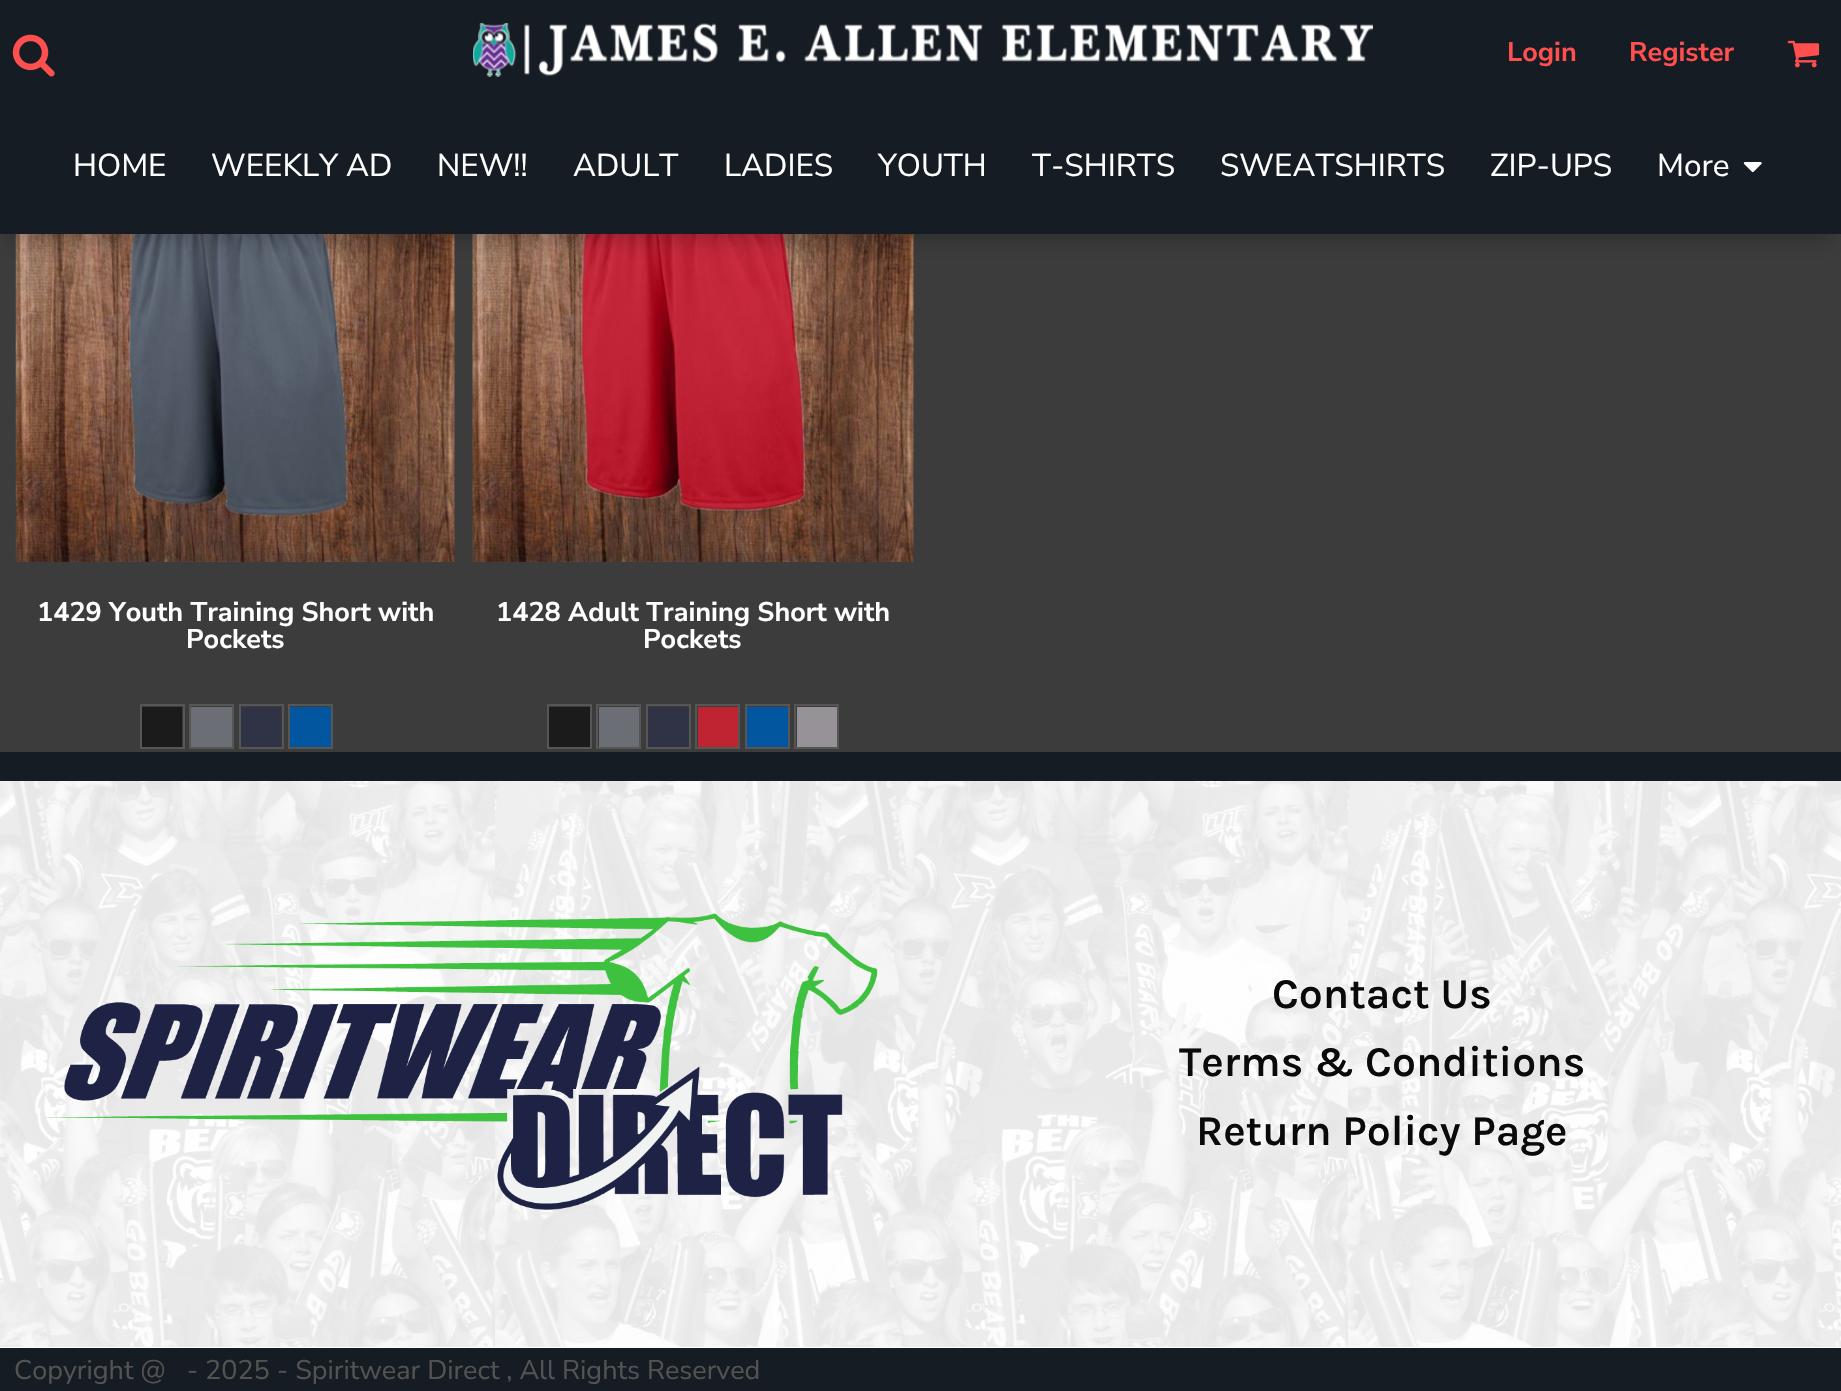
void draw(SkCanvas* canvas) {
  SkPaint paint;
  paint.setAntiAlias(true);
  auto face = [&](const char* family, int weight, float size, bool italic = false) {
    SkFontStyle style(weight, SkFontStyle::kNormal_Width,
      italic ? SkFontStyle::kItalic_Slant : SkFontStyle::kUpright_Slant);
    SkFont result(fontMgr->matchFamilyStyle(family, style), size);
    result.setSubpixel(true);
    return result;
  };
  auto paste = [&](const char* path, float x, float y, float w, float h) {
    auto image = SkImages::DeferredFromEncodedData(SkData::MakeFromFileName(path));
    canvas->drawImageRect(image, SkRect::MakeXYWH(x, y, w, h), SkSamplingOptions());
  };
  canvas->clear(0xff3c3c3c);
  paste("img/5.png", 15, 234, 440, 328);
  paste("img/6.png", 472, 234, 442, 328);
  paint.setColor(0x40000000);
  paint.setMaskFilter(SkMaskFilter::MakeBlur(kNormal_SkBlurStyle, 11));
  canvas->drawRect(SkRect::MakeXYWH(7, 23, 1825, 216), paint);
  paint.setMaskFilter(nullptr);
  paint.setColor(0xff161c23);
  canvas->drawRect(SkRect::MakeXYWH(0, 0, 1841, 234), paint);
  paste("img/1.png", 12, 34, 43, 43);
  paste("img/2.png", 473, 23, 900, 54);
  paste("img/3.png", 1787, 40, 33, 28);
  paste("img/4.png", 1743, 162, 19, 11);
  paint.setStroke(true);
  paint.setStrokeWidth(2);
  paint.setColor(0xff565656);
  canvas->drawRect(SkRect::MakeXYWH(141, 705, 43, 43), paint);
  paint.setStroke(false);
  paint.setColor(0xff1b1b1b);
  canvas->drawRect(SkRect::MakeXYWH(142, 707, 40, 40), paint);
  paint.setStroke(true);
  paint.setColor(0xff565656);
  canvas->drawRect(SkRect::MakeXYWH(190, 705, 43, 43), paint);
  paint.setStroke(false);
  paint.setColor(0xff6b6e74);
  canvas->drawRect(SkRect::MakeXYWH(191, 707, 41, 40), paint);
  paint.setStroke(true);
  paint.setColor(0xff565656);
  canvas->drawRect(SkRect::MakeXYWH(240, 705, 43, 43), paint);
  paint.setStroke(false);
  paint.setColor(0xff303346);
  canvas->drawRect(SkRect::MakeXYWH(241, 707, 40, 40), paint);
  paint.setStroke(true);
  paint.setColor(0xff565656);
  canvas->drawRect(SkRect::MakeXYWH(289, 705, 43, 43), paint);
  paint.setStroke(false);
  paint.setColor(0xff02559f);
  canvas->drawRect(SkRect::MakeXYWH(290, 707, 41, 40), paint);
  paint.setStroke(true);
  paint.setColor(0xff565656);
  canvas->drawRect(SkRect::MakeXYWH(548, 705, 43, 43), paint);
  paint.setStroke(false);
  paint.setColor(0xff1b1b1b);
  canvas->drawRect(SkRect::MakeXYWH(549, 707, 41, 40), paint);
  paint.setStroke(true);
  paint.setColor(0xff565656);
  canvas->drawRect(SkRect::MakeXYWH(597, 705, 43, 43), paint);
  paint.setStroke(false);
  paint.setColor(0xff6b6e74);
  canvas->drawRect(SkRect::MakeXYWH(599, 707, 40, 40), paint);
  paint.setStroke(true);
  paint.setColor(0xff565656);
  canvas->drawRect(SkRect::MakeXYWH(647, 705, 43, 43), paint);
  paint.setStroke(false);
  paint.setColor(0xff303346);
  canvas->drawRect(SkRect::MakeXYWH(648, 707, 41, 40), paint);
  paint.setStroke(true);
  paint.setColor(0xff565656);
  canvas->drawRect(SkRect::MakeXYWH(696, 705, 43, 43), paint);
  paint.setStroke(false);
  paint.setColor(0xffbe2432);
  canvas->drawRect(SkRect::MakeXYWH(698, 707, 40, 40), paint);
  paint.setStroke(true);
  paint.setColor(0xff565656);
  canvas->drawRect(SkRect::MakeXYWH(746, 705, 43, 43), paint);
  paint.setStroke(false);
  paint.setColor(0xff02559f);
  canvas->drawRect(SkRect::MakeXYWH(747, 707, 41, 40), paint);
  paint.setStroke(true);
  paint.setColor(0xff565656);
  canvas->drawRect(SkRect::MakeXYWH(795, 705, 43, 43), paint);
  paint.setStroke(false);
  {
    const struct { float x, y, w, h; SkColor color; } items[] = {
      {797, 707, 40, 40, 0xff979298},
      {0, 752, 1841, 29, 0xff161c23},
      {0, 781, 1841, 567, 0xffffffff},
    };
    for (auto [x, y, w, h, color] : items) {
      paint.setColor(color);
      canvas->drawRect(SkRect::MakeXYWH(x, y, w, h), paint);
    }
  }
  paste("img/7.png", 0, 781, 1841, 566);
  paste("img/8.png", 45, 913, 833, 297);
  paint.setColor(0xff161c23);
  canvas->drawRect(SkRect::MakeXYWH(0, 1348, 1841, 43), paint);
  auto f0 = face("Nunito Sans", 200, 27);
  paint.setColor(0xffff4f4e);
  canvas->drawString("Login", 1507, 61, f0, paint);
  canvas->drawString("Register", 1629, 61, f0, paint);
  auto f1 = face("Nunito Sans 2", 200, 31.5f);
  paint.setColor(0xffffffff);
  {
    const struct { const char* s; float x, y; } items[] = {
      {"HOME", 73, 176},
      {"WEEKLY AD", 211, 176},
      {"NEW!!", 437, 176},
      {"ADULT", 573, 176},
      {"LADIES", 724, 176},
      {"YOUTH", 878, 176},
      {"T-SHIRTS", 1032, 176},
      {"SWEATSHIRTS", 1220, 176},
      {"ZIP-UPS", 1490, 176},
      {"More", 1657, 176},
    };
    for (auto [s, x, y] : items) {
      canvas->drawString(s, x, y, f1, paint);
    }
  }
  {
    const struct { const char* s; float x, y; } items[] = {
      {"1429 Youth Training Short with", 37, 621},
      {"Pockets", 186, 648},
      {"1428 Adult Training Short with", 496, 621},
      {"Pockets", 643, 648},
    };
    for (auto [s, x, y] : items) {
      canvas->drawString(s, x, y, f0, paint);
    }
  }
  auto f2 = face("Karla", 600, 42.75f);
  paint.setColor(0xff0a0a0a);
  {
    const struct { const char* s; float x, y; } items[] = {
      {"Contact Us", 1272, 1008},
      {"Terms & Conditions", 1179, 1076},
      {"Return Policy Page", 1196, 1145},
    };
    for (auto [s, x, y] : items) {
      canvas->drawString(s, x, y, f2, paint);
    }
  }
  auto f3 = face("Nunito Sans 2", 200, 27);
  paint.setColor(0xff535353);
  canvas->drawString("Copyright @   - 2025 - Spiritwear Direct , All Rights Reserved", 14, 1379, f3, paint);
}
